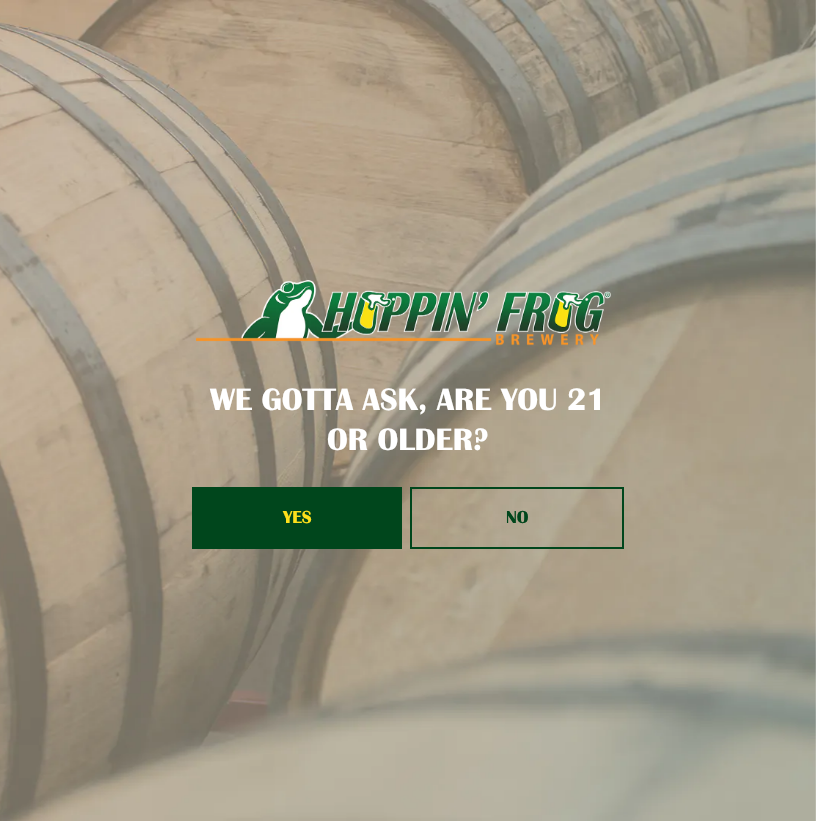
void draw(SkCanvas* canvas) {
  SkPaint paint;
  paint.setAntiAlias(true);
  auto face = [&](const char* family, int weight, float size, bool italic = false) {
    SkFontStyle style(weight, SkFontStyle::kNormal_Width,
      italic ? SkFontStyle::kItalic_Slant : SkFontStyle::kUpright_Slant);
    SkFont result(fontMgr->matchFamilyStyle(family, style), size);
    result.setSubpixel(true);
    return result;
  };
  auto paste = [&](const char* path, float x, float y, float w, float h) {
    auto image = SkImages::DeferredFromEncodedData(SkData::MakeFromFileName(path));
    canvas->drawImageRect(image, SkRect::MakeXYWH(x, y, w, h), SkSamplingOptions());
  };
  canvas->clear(0xffffffff);
  paste("img/1.png", 0, 0, 816, 821);
  paste("img/2.png", 196, 280, 415, 66);
  paint.setColor(0xff00461c);
  canvas->drawRect(SkRect::MakeXYWH(192, 487, 210, 62), paint);
  paint.setStroke(true);
  paint.setStrokeWidth(2);
  canvas->drawRect(SkRect::MakeXYWH(411, 488, 212, 60), paint);
  auto f0 = face("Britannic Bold", 700, 32);
  paint.setStroke(false);
  paint.setColor(0xffffffff);
  canvas->drawString("WE GOTTA ASK, ARE YOU 21", 210, 410, f0, paint);
  canvas->drawString("OR OLDER?", 327, 450, f0, paint);
  auto f1 = face("Britannic Bold", 700, 18);
  paint.setColor(0xffffe01b);
  canvas->drawString("YES", 283, 523, f1, paint);
  paint.setColor(0xff00461c);
  canvas->drawString("NO", 506, 523, f1, paint);
}
